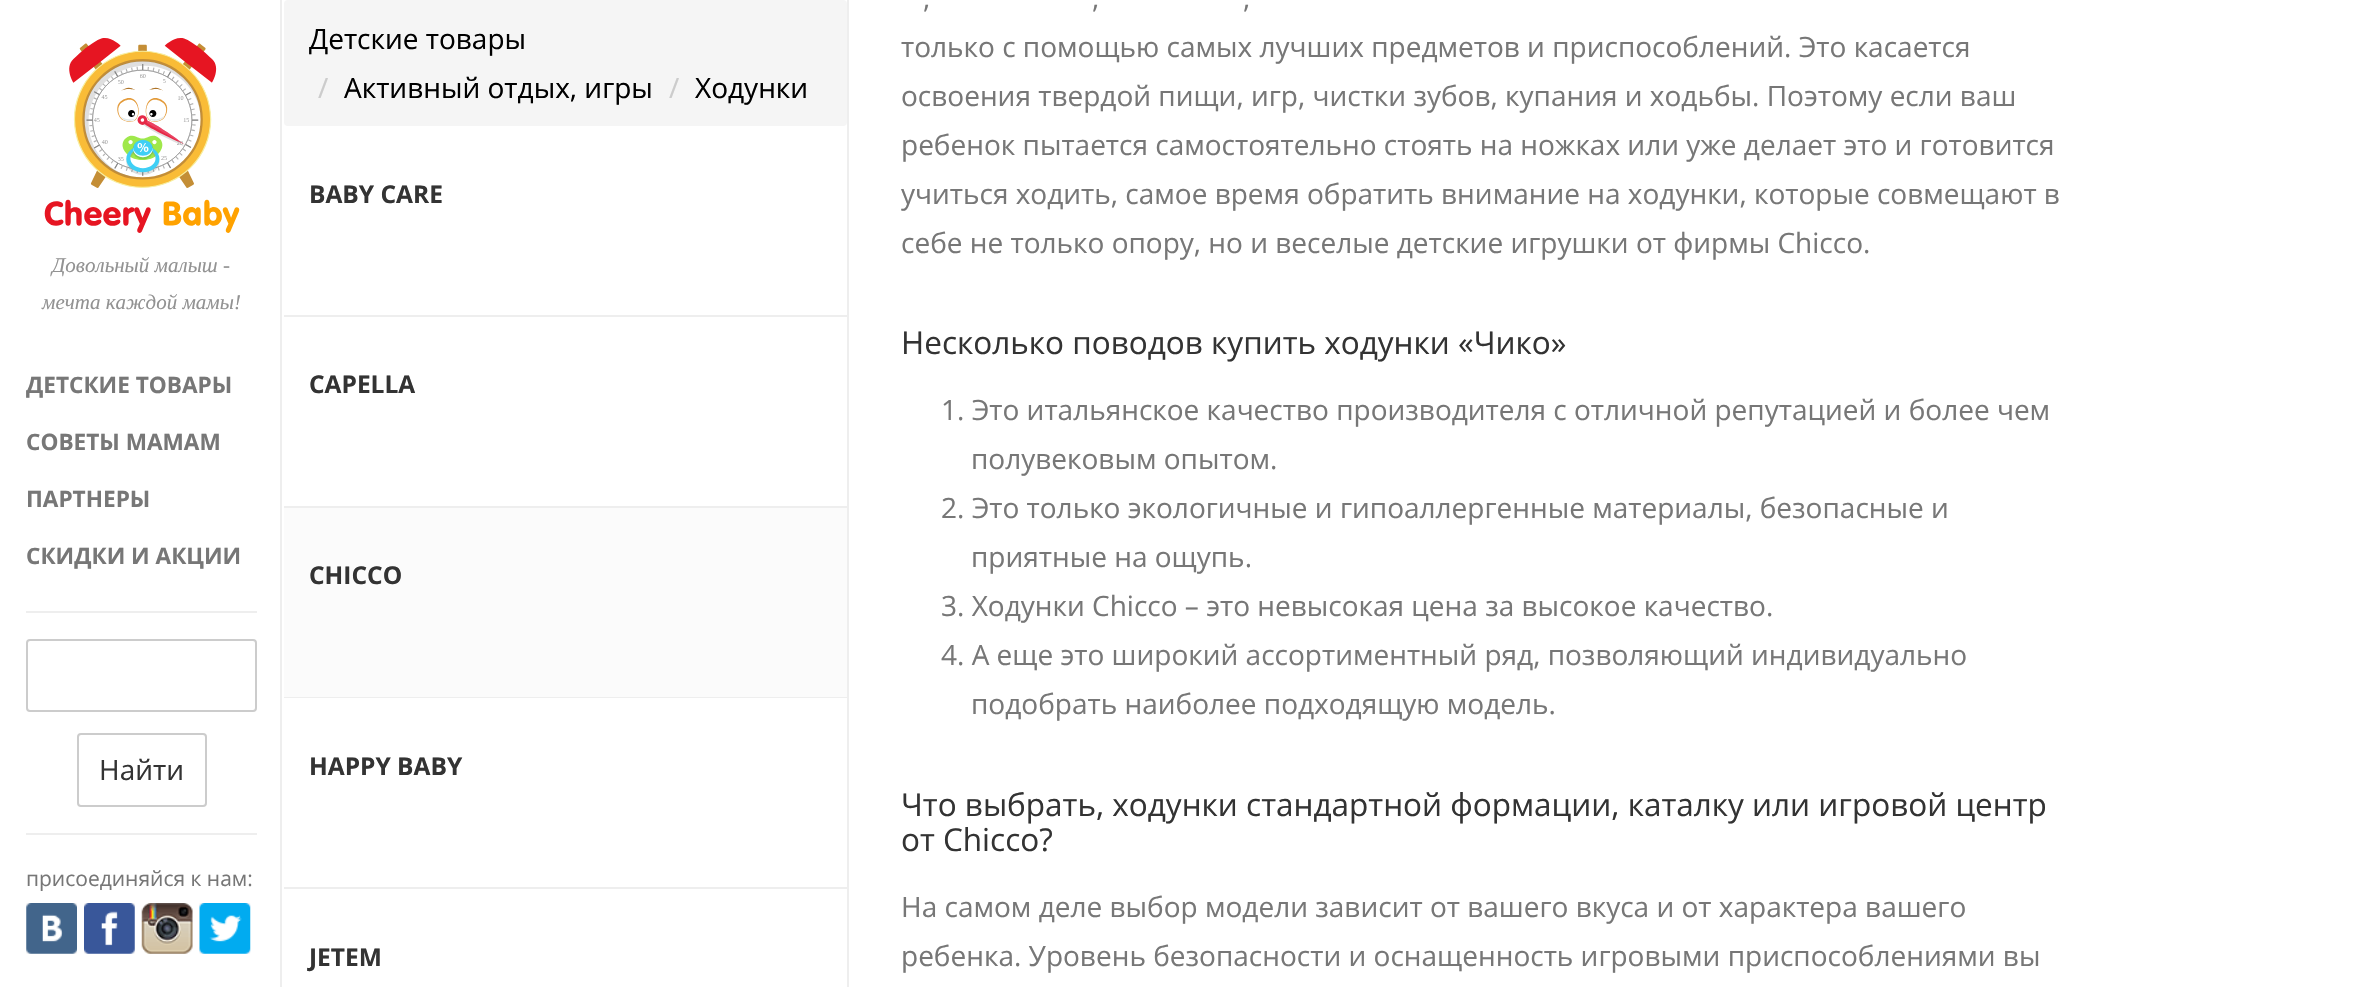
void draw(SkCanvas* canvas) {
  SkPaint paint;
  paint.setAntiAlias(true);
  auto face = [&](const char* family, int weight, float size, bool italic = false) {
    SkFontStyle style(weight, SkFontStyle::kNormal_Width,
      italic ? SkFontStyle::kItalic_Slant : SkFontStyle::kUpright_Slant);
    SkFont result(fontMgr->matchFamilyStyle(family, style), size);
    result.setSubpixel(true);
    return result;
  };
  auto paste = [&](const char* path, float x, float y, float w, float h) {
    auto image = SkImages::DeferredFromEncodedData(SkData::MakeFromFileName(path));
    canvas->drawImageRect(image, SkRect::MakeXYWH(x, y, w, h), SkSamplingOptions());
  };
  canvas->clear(0xffffffff);
  paste("img/1.png", 44, 38, 196, 195);
  paint.setColor(0xffeeeeee);
  canvas->drawRect(SkRect::MakeXYWH(26, 611, 231, 2), paint);
  paint.setStroke(true);
  paint.setStrokeWidth(2);
  paint.setColor(0xffcccccc);
  canvas->drawRoundRect(SkRect::MakeXYWH(27, 640, 229, 71), 3, 3, paint);
  canvas->drawRoundRect(SkRect::MakeXYWH(78, 734, 128, 72), 3, 3, paint);
  paint.setStroke(false);
  paint.setColor(0xffeeeeee);
  canvas->drawRect(SkRect::MakeXYWH(26, 833, 231, 2), paint);
  paste("img/2.png", 26, 903, 51, 51);
  paste("img/3.png", 84, 903, 51, 51);
  paste("img/4.png", 141, 903, 52, 51);
  paste("img/5.png", 199, 903, 52, 51);
  canvas->drawRect(SkRect::MakeXYWH(280, 0, 2, 987), paint);
  canvas->drawRect(SkRect::MakeXYWH(847, 0, 2, 987), paint);
  paint.setColor(0xfff5f5f5);
  canvas->drawRoundRect(SkRect::MakeXYWH(284, 0, 563, 126), 4, 4, paint);
  {
    const struct { float x, y, w, h; SkColor color; } items[] = {
      {284, 315, 563, 2, 0xffeeeeee},
      {284, 506, 563, 2, 0xffeeeeee},
      {284, 508, 563, 189, 0xfffbfbfb},
      {284, 697, 563, 1, 0xffeeeeee},
      {284, 887, 563, 2, 0xffeeeeee},
    };
    for (auto [x, y, w, h, color] : items) {
      paint.setColor(color);
      canvas->drawRect(SkRect::MakeXYWH(x, y, w, h), paint);
    }
  }
  auto f0 = face("Liberation Serif", 400, 21, true);
  paint.setColor(0xff929292);
  canvas->drawString("Довольный малыш -", 52, 272, f0, paint);
  canvas->drawString("мечта каждой мамы!", 42, 309, f0, paint);
  auto f1 = face("Open Sans", 700, 22.6f);
  paint.setColor(0xff777777);
  {
    const struct { const char* s; float x, y; } items[] = {
      {"ДЕТСКИЕ ТОВАРЫ", 26, 393},
      {"СОВЕТЫ МАМАМ", 26, 450},
      {"ПАРТНЕРЫ", 26, 507},
      {"СКИДКИ И АКЦИИ", 26, 564},
    };
    for (auto [s, x, y] : items) {
      canvas->drawString(s, x, y, f1, paint);
    }
  }
  auto f2 = face("Open Sans", 400, 28);
  paint.setColor(0xff333333);
  canvas->drawString("Найти", 99, 780, f2, paint);
  auto f3 = face("Open Sans", 400, 21);
  paint.setColor(0xff777777);
  canvas->drawString("присоединяйся к нам:", 26, 886, f3, paint);
  paint.setColor(0xff000000);
  canvas->drawString("Детские товары", 309, 49, f2, paint);
  paint.setColor(0xffcccccc);
  canvas->drawString("/", 318, 98, f2, paint);
  paint.setColor(0xff000000);
  canvas->drawString("Активный отдых, игры", 344, 98, f2, paint);
  paint.setColor(0xffcccccc);
  canvas->drawString("/", 669, 98, f2, paint);
  paint.setColor(0xff000000);
  canvas->drawString("Ходунки", 695, 98, f2, paint);
  auto f4 = face("Open Sans", 700, 24.5f);
  paint.setColor(0xff333333);
  {
    const struct { const char* s; float x, y; } items[] = {
      {"BABY CARE", 309, 203},
      {"CAPELLA", 309, 393},
      {"CHICCO", 309, 584},
      {"HAPPY BABY", 309, 775},
      {"JETEM", 309, 966},
    };
    for (auto [s, x, y] : items) {
      canvas->drawString(s, x, y, f4, paint);
    }
  }
  paint.setColor(0xff777777);
  {
    const struct { const char* s; float x, y; } items[] = {
      {",", 923, 8},
      {",", 1092, 8},
      {",", 1243, 8},
      {"только с помощью самых лучших предметов и приспособлений. Это касается", 901, 57},
      {"освоения твердой пищи, игр, чистки зубов, купания и ходьбы. Поэтому если ваш", 901, 106},
      {"ребенок пытается самостоятельно стоять на ножках или уже делает это и готовится", 901, 155},
      {"учиться ходить, самое время обратить внимание на ходунки, которые совмещают в", 901, 204},
      {"себе не только опору, но и веселые детские игрушки от фирмы Chicco.", 901, 253},
    };
    for (auto [s, x, y] : items) {
      canvas->drawString(s, x, y, f2, paint);
    }
  }
  auto f5 = face("Open Sans", 400, 31.5f);
  paint.setColor(0xff333333);
  canvas->drawString("Несколько поводов купить ходунки «Чико»", 901, 354, f5, paint);
  paint.setColor(0xff777777);
  {
    const struct { const char* s; float x, y; } items[] = {
      {"1. Это итальянское качество производителя с отличной репутацией и более чем", 941, 420},
      {"полувековым опытом.", 971, 469},
      {"2. Это только экологичные и гипоаллергенные материалы, безопасные и", 941, 518},
      {"приятные на ощупь.", 971, 567},
      {"3. Ходунки Chicco – это невысокая цена за высокое качество.", 941, 616},
      {"4. А еще это широкий ассортиментный ряд, позволяющий индивидуально", 941, 665},
      {"подобрать наиболее подходящую модель.", 971, 714},
    };
    for (auto [s, x, y] : items) {
      canvas->drawString(s, x, y, f2, paint);
    }
  }
  paint.setColor(0xff333333);
  canvas->drawString("Что выбрать, ходунки стандартной формации, каталку или игровой центр", 901, 816, f5, paint);
  canvas->drawString("от Chicco?", 901, 851, f5, paint);
  paint.setColor(0xff777777);
  canvas->drawString("На самом деле выбор модели зависит от вашего вкуса и от характера вашего", 901, 917, f2, paint);
  canvas->drawString("ребенка. Уровень безопасности и оснащенность игровыми приспособлениями вы", 901, 966, f2, paint);
}
